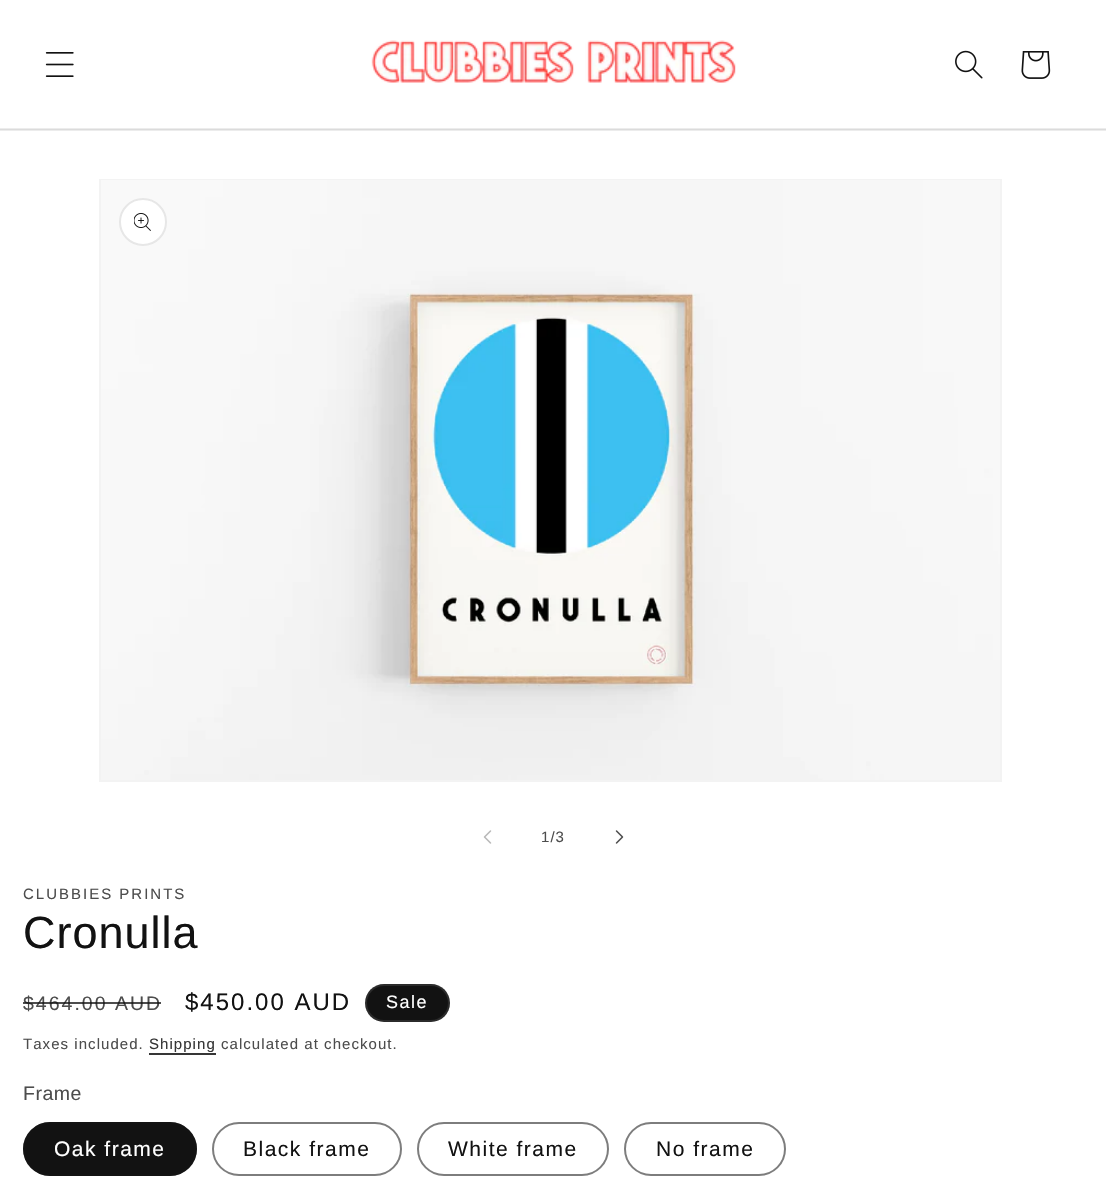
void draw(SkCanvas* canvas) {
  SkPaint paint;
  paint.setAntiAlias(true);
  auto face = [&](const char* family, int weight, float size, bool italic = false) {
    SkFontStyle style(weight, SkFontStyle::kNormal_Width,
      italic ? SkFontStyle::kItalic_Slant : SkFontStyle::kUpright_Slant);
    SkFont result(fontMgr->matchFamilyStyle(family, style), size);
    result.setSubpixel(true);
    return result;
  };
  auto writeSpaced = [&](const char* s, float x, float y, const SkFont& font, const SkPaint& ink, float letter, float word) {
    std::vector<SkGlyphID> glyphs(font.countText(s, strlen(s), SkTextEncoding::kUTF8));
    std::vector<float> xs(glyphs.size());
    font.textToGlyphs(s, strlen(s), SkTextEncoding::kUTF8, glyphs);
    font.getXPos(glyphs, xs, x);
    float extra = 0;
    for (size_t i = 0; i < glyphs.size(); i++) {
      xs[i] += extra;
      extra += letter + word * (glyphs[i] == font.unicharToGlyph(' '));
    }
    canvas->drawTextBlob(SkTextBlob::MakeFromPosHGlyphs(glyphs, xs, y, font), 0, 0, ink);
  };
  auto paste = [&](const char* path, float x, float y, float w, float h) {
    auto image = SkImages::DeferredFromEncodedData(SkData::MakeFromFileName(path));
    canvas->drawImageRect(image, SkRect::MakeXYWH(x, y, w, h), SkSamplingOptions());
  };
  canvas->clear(0xffffffff);
  paint.setColor(0xffececec);
  canvas->drawRect(SkRect::MakeXYWH(0, 128, 1106, 1), paint);
  paste("img/1.png", 45, 52, 29, 25);
  paste("img/2.png", 371, 40, 365, 43);
  paste("img/3.png", 955, 50, 28, 29);
  paste("img/4.png", 1021, 51, 30, 28);
  canvas->drawRect(SkRect::MakeXYWH(0, 130, 1106, 1), paint);
  paint.setColor(0xffdbdbdb);
  canvas->drawRect(SkRect::MakeXYWH(0, 129, 1106, 1), paint);
  paint.setStroke(true);
  paint.setStrokeWidth(2);
  paint.setColor(0xfff3f3f3);
  canvas->drawRect(SkRect::MakeXYWH(100, 180, 901, 601), paint);
  paste("img/5.png", 101, 180, 899, 600);
  paint.setStroke(false);
  paint.setColor(0xffffffff);
  canvas->drawCircle(143, 222, 24, paint);
  paint.setStroke(true);
  paint.setColor(0x1a121212);
  canvas->drawCircle(143, 222, 23, paint);
  paste("img/6.png", 134, 213, 17, 18);
  paste("img/7.png", 483, 830, 9, 14);
  paste("img/8.png", 615, 830, 9, 14);
  paint.setStroke(false);
  paint.setColor(0xff121212);
  canvas->drawRoundRect(SkRect::MakeXYWH(365, 984, 85, 38), 19, 19, paint);
  paint.setStroke(true);
  paint.setColor(0x1affffff);
  canvas->drawRoundRect(SkRect::MakeXYWH(366, 985, 83, 36), 18, 18, paint);
  paint.setStroke(false);
  paint.setColor(0xff363636);
  canvas->drawRect(SkRect::MakeXYWH(149, 1053, 67, 2), paint);
  paint.setColor(0xff121212);
  canvas->drawRoundRect(SkRect::MakeXYWH(23, 1122, 174, 54), 27, 27, paint);
  paint.setStroke(true);
  paint.setColor(0x8c121212);
  canvas->drawRoundRect(SkRect::MakeXYWH(24, 1123, 172, 52), 26, 26, paint);
  paint.setColor(0xff7d7d7d);
  canvas->drawRoundRect(SkRect::MakeXYWH(213, 1123, 188, 52), 26, 26, paint);
  canvas->drawRoundRect(SkRect::MakeXYWH(418, 1123, 190, 52), 26, 26, paint);
  canvas->drawRoundRect(SkRect::MakeXYWH(625, 1123, 160, 52), 26, 26, paint);
  auto f0 = face("Liberation Sans", 400, 15);
  paint.setStroke(false);
  paint.setColor(0xff4d4d4d);
  writeSpaced("1/3", 541, 842, f0, paint, 1.05f, 0);
  writeSpaced("CLUBBIES PRINTS", 23, 899, f0, paint, 2, 0);
  auto f1 = face("Liberation Sans", 400, 45);
  paint.setColor(0xff121212);
  writeSpaced("Cronulla", 23, 948, f1, paint, 1, 0);
  auto f2 = face("Liberation Sans", 400, 19.5f);
  paint.setColor(0xff4d4d4d);
  writeSpaced("$464.00 AUD", 23, 1010, f2, paint, 2, 0);
  paint.setColor(0xbf121212);
  canvas->drawRect(SkRect::MakeXYWH(23, 1002, 138, 2), paint);
  auto f3 = face("Liberation Sans", 400, 24);
  paint.setColor(0xff121212);
  writeSpaced("$450.00 AUD", 185, 1010, f3, paint, 2, 0);
  auto f4 = face("Liberation Sans", 400, 18);
  paint.setColor(0xffffffff);
  writeSpaced("Sale", 386, 1008, f4, paint, 1.5f, 0);
  paint.setColor(0xff4d4d4d);
  writeSpaced("Taxes included.", 23, 1049, f0, paint, 1.05f, 0);
  paint.setColor(0xff363636);
  writeSpaced("Shipping", 149, 1049, f0, paint, 1.05f, 0);
  paint.setColor(0xff4d4d4d);
  writeSpaced("calculated at checkout.", 221, 1049, f0, paint, 1.05f, 0);
  writeSpaced("Frame", 23, 1100, f2, paint, 0.5f, 0);
  auto f5 = face("Liberation Sans", 400, 21);
  paint.setColor(0xffffffff);
  writeSpaced("Oak frame", 54, 1156, f5, paint, 1.5f, 0);
  paint.setColor(0xff121212);
  {
    const struct { const char* s; float x, y; } items[] = {
      {"Black frame", 243, 1156},
      {"White frame", 448, 1156},
      {"No frame", 656, 1156},
    };
    for (auto [s, x, y] : items) {
      writeSpaced(s, x, y, f5, paint, 1.5f, 0);
    }
  }
}
